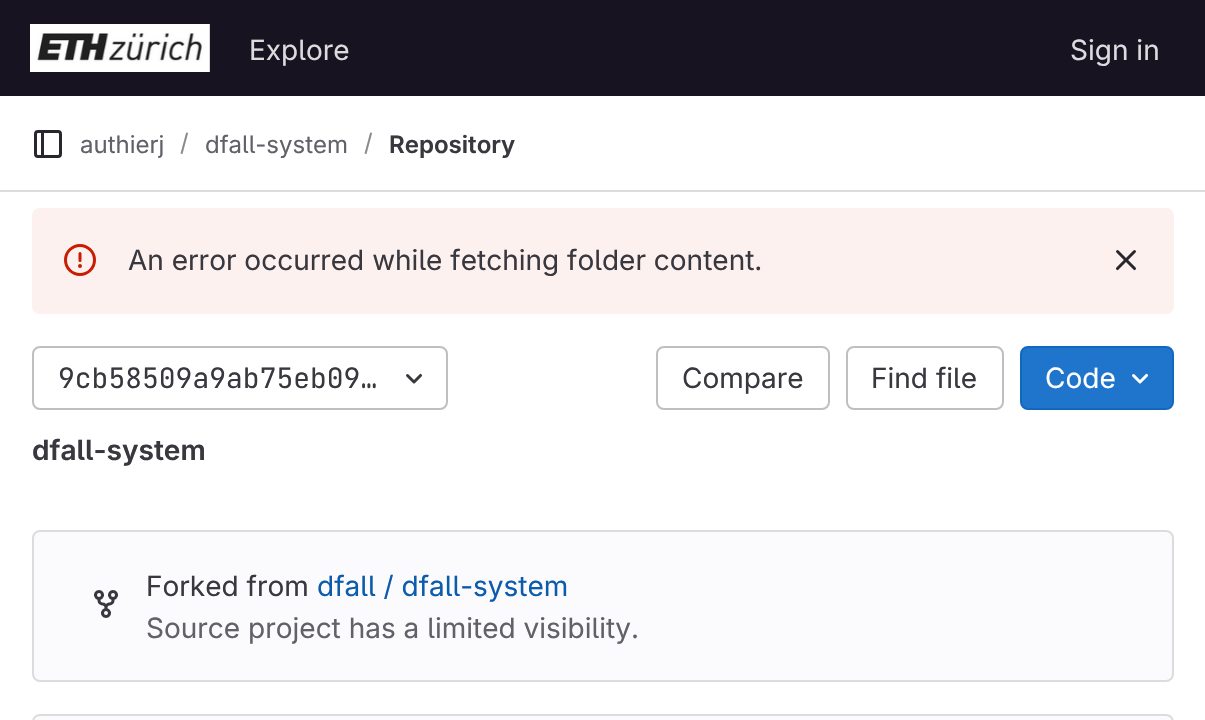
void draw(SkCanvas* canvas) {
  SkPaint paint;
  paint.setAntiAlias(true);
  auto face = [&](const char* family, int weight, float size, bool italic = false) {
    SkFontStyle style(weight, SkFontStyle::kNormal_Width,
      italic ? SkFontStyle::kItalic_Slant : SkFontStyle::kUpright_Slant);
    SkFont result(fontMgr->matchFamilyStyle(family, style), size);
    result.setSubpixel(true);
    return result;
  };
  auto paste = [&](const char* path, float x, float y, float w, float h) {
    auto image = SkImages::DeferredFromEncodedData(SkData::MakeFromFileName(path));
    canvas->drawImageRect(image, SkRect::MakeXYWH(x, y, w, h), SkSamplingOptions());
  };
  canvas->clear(0xffffffff);
  paint.setColor(0xff171321);
  canvas->drawRect(SkRect::MakeXYWH(0, 0, 1205, 96), paint);
  paste("img/1.png", 30, 24, 180, 48);
  paint.setColor(0xffdcdcde);
  canvas->drawRect(SkRect::MakeXYWH(0, 190, 1205, 2), paint);
  paste("img/2.png", 34, 130, 28, 28);
  paint.setColor(0xfffcf1ef);
  canvas->drawRoundRect(SkRect::MakeXYWH(32, 208, 1142, 106), 8, 8, paint);
  paste("img/3.png", 64, 244, 32, 32);
  paste("img/4.png", 1115, 250, 22, 21);
  paint.setStroke(true);
  paint.setStrokeWidth(2);
  paint.setColor(0xffbfbfc3);
  canvas->drawRoundRect(SkRect::MakeXYWH(33, 347, 414, 62), 7, 7, paint);
  paste("img/5.png", 406, 373, 17, 11);
  canvas->drawRoundRect(SkRect::MakeXYWH(657, 347, 172, 62), 7, 7, paint);
  canvas->drawRoundRect(SkRect::MakeXYWH(847, 347, 156, 62), 7, 7, paint);
  paint.setStroke(false);
  paint.setColor(0xff1f75cb);
  canvas->drawRoundRect(SkRect::MakeXYWH(1021, 347, 152, 62), 7, 7, paint);
  paint.setStroke(true);
  paint.setColor(0xff1068bf);
  canvas->drawRoundRect(SkRect::MakeXYWH(1021, 347, 152, 62), 7, 7, paint);
  paste("img/6.png", 1132, 373, 17, 11);
  paint.setStroke(false);
  paint.setColor(0xfffbfafd);
  canvas->drawRoundRect(SkRect::MakeXYWH(33, 531, 1140, 150), 7, 7, paint);
  paint.setStroke(true);
  paint.setColor(0xffdcdcde);
  canvas->drawRoundRect(SkRect::MakeXYWH(33, 531, 1140, 150), 7, 7, paint);
  paste("img/7.png", 94, 590, 24, 28);
  paint.setStroke(false);
  paint.setColor(0xfffbfafd);
  canvas->drawRoundRect(SkRect::MakeXYWH(33, 715, 1140, 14), 7, 7, paint);
  paint.setStroke(true);
  paint.setColor(0xffdcdcde);
  canvas->drawRoundRect(SkRect::MakeXYWH(33, 715, 1140, 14), 7, 7, paint);
  auto f0 = face("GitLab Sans", 400, 28);
  paint.setStroke(false);
  canvas->drawString("Explore", 249, 60, f0, paint);
  canvas->drawString("Sign in", 1070, 60, f0, paint);
  auto f1 = face("GitLab Sans", 400, 24);
  paint.setColor(0xff626168);
  canvas->drawString("authierj", 80, 153, f1, paint);
  paint.setColor(0xff89888d);
  canvas->drawString("/", 180, 151, f1, paint);
  paint.setColor(0xff626168);
  canvas->drawString("dfall-system", 205, 153, f1, paint);
  paint.setColor(0xff89888d);
  canvas->drawString("/", 364, 151, f1, paint);
  auto f2 = face("GitLab Sans", 600, 24);
  paint.setColor(0xff3a383f);
  canvas->drawString("Repository", 389, 153, f2, paint);
  canvas->drawString("An error occurred while fetching folder content.", 128, 270, f0, paint);
  auto f3 = face("JetBrains Mono", 400, 28);
  canvas->drawString("9cb58509a9ab75eb09…", 58, 388, f3, paint);
  auto f4 = face("GitLab Sans", 600, 28);
  canvas->drawString("dfall-system", 32, 460, f4, paint);
  canvas->drawString("Compare", 682, 388, f0, paint);
  canvas->drawString("Find file", 871, 388, f0, paint);
  paint.setColor(0xffffffff);
  canvas->drawString("Code", 1045, 388, f0, paint);
  paint.setColor(0xff3a383f);
  canvas->drawString("Forked from", 146, 596, f0, paint);
  paint.setColor(0xff0b5cad);
  canvas->drawString("dfall / dfall-system", 317, 596, f0, paint);
  paint.setColor(0xff626168);
  canvas->drawString("Source project has a limited visibility.", 146, 638, f0, paint);
}
